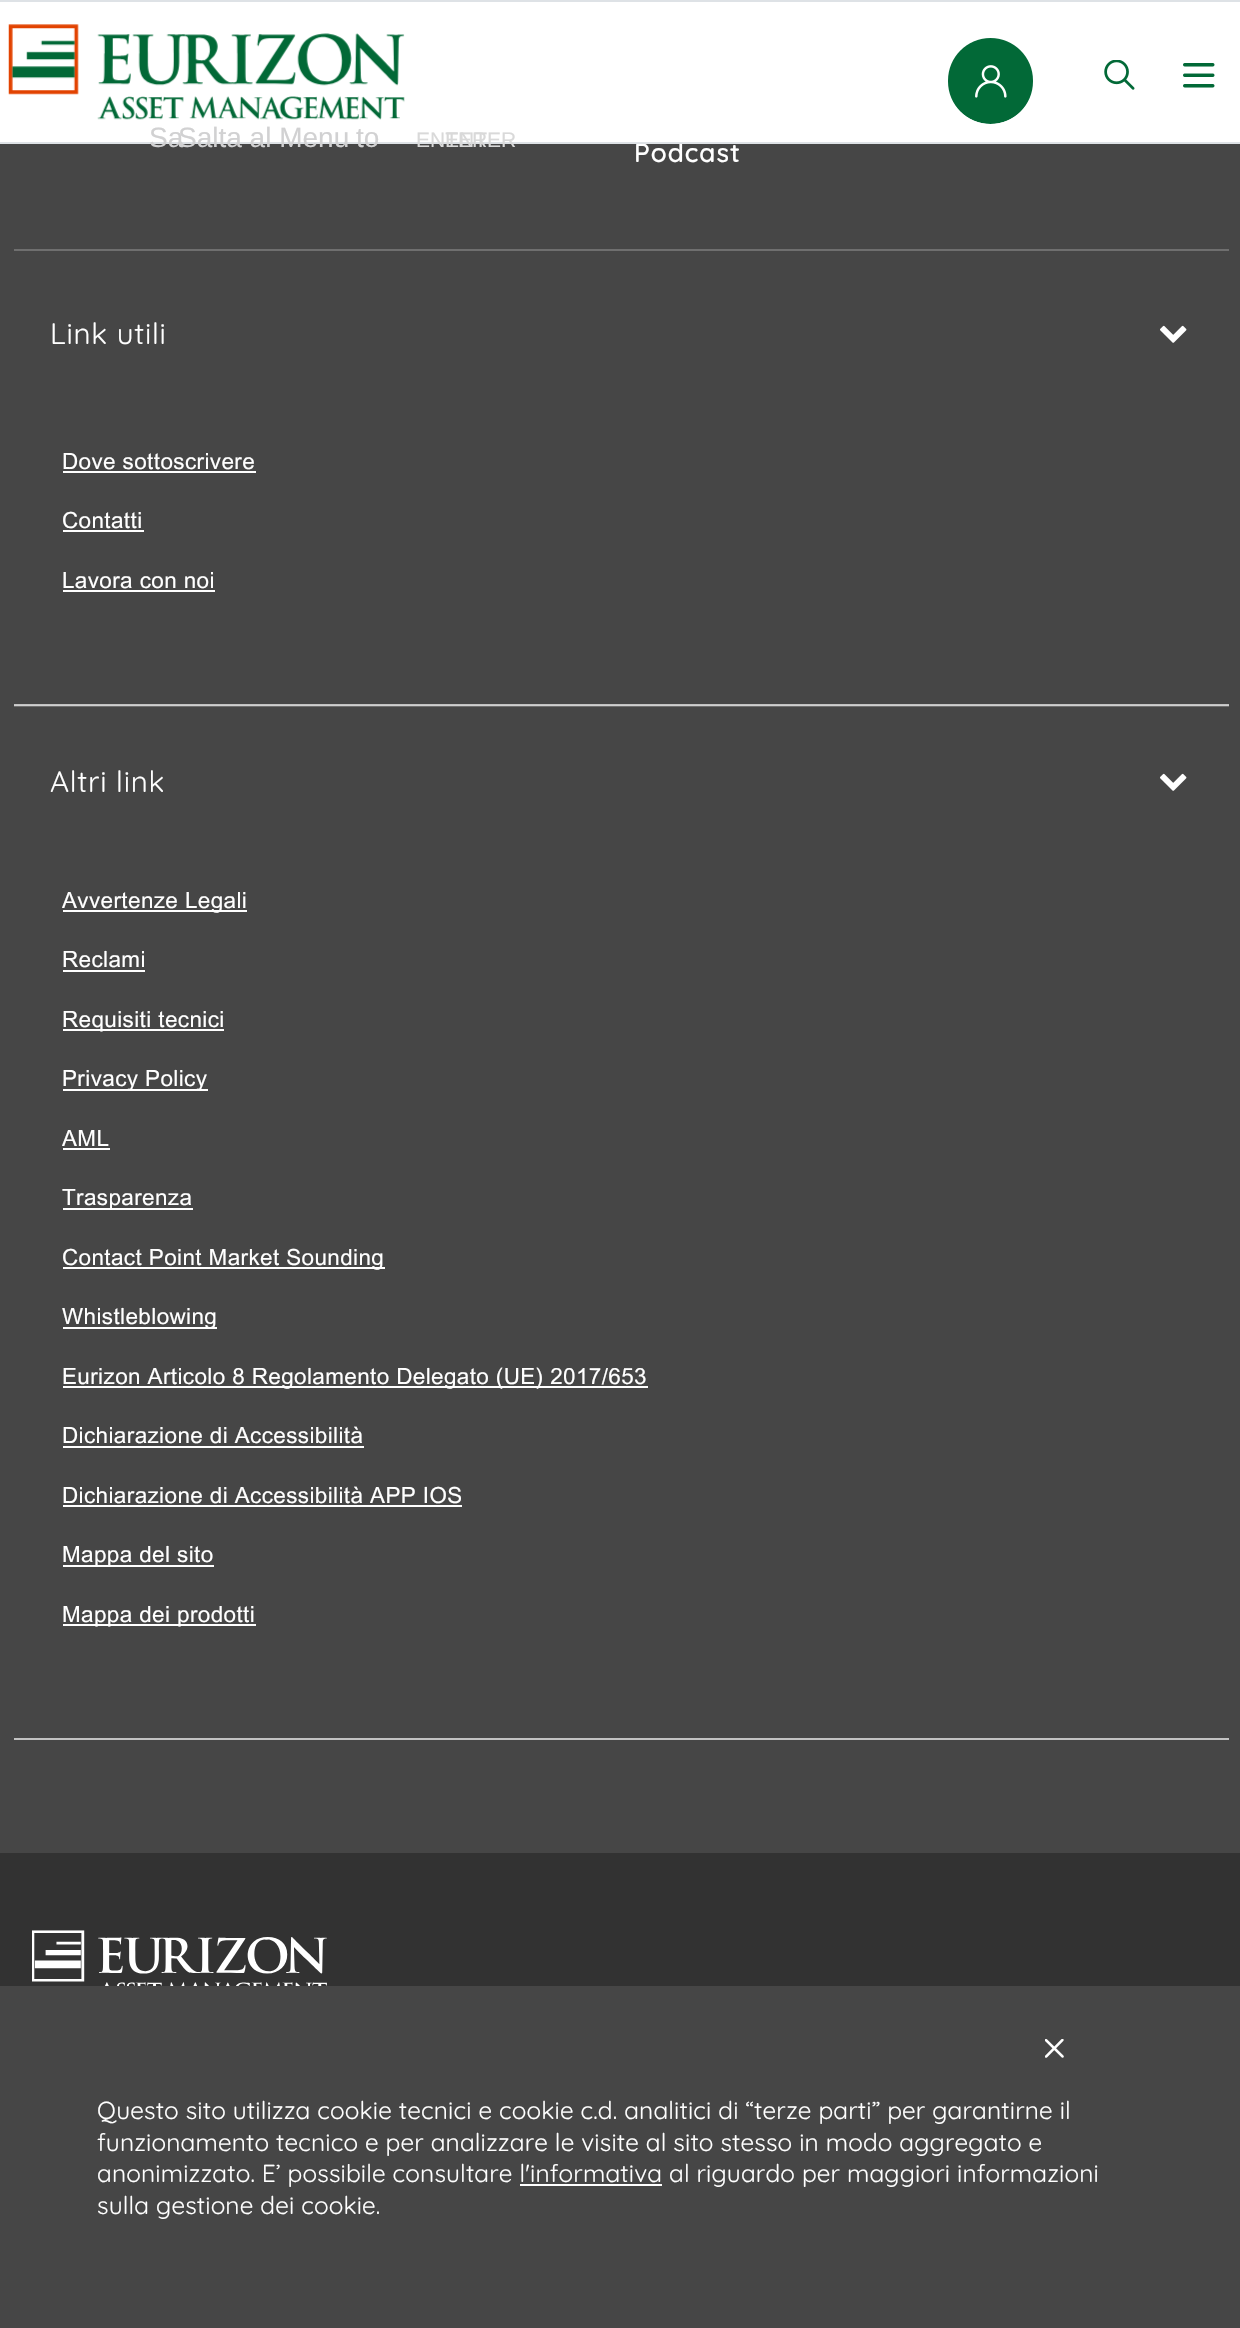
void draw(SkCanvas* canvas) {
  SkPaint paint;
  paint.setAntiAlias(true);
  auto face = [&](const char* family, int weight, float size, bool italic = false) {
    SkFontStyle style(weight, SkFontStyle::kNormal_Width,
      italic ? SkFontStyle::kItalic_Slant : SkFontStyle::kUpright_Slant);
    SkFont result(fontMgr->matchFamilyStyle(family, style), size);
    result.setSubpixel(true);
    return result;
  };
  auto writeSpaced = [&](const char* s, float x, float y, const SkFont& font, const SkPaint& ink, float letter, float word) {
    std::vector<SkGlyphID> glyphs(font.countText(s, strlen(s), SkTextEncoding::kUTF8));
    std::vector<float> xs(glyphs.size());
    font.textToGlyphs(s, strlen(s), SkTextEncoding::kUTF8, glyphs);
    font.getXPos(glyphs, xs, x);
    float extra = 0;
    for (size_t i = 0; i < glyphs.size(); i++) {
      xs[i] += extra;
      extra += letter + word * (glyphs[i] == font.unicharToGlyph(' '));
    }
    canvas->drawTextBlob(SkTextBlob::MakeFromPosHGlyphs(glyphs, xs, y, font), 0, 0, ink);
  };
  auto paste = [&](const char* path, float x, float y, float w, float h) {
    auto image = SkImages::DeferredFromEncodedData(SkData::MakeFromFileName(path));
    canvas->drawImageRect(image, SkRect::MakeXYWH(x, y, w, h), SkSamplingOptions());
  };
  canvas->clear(0xff464646);
  paint.setColor(0xffffffff);
  canvas->drawRect(SkRect::MakeXYWH(0, 2, 1240, 140), paint);
  paint.setColor(0xffdee2e6);
  canvas->drawRect(SkRect::MakeXYWH(0, 0, 1240, 2), paint);
  paste("img/1.png", 8, 24, 397, 96);
  paste("img/2.png", 948, 38, 85, 86);
  paste("img/3.png", 1104, 60, 31, 30);
  paste("img/4.png", 1183, 63, 32, 25);
  {
    const struct { float x, y, w, h; SkColor color; } items[] = {
      {14, 706, 1215, 1, 0xff6f6f6f},
      {14, 704, 1215, 1, 0xffc2c2c2},
      {14, 705, 1215, 1, 0xffcfcfcf},
      {14, 249, 1215, 2, 0xff6f6f6f},
    };
    for (auto [x, y, w, h, color] : items) {
      paint.setColor(color);
      canvas->drawRect(SkRect::MakeXYWH(x, y, w, h), paint);
    }
  }
  paste("img/5.png", 1160, 325, 27, 18);
  {
    const struct { float x, y, w, h; SkColor color; } items[] = {
      {63, 471, 193, 2, 0xffffffff},
      {63, 530, 81, 2, 0xffffffff},
      {63, 590, 152, 2, 0xffffffff},
      {14, 1738, 1215, 2, 0xffc2c2c2},
    };
    for (auto [x, y, w, h, color] : items) {
      paint.setColor(color);
      canvas->drawRect(SkRect::MakeXYWH(x, y, w, h), paint);
    }
  }
  paste("img/5.png", 1160, 773, 27, 18);
  {
    const struct { float x, y, w, h; SkColor color; } items[] = {
      {63, 910, 184, 2, 0xffffffff},
      {63, 970, 82, 2, 0xffffffff},
      {63, 1029, 161, 2, 0xffffffff},
      {63, 1089, 145, 2, 0xffffffff},
      {63, 1148, 47, 2, 0xffffffff},
      {63, 1208, 130, 2, 0xffffffff},
      {63, 1267, 322, 2, 0xffffffff},
      {63, 1327, 154, 2, 0xffffffff},
      {63, 1386, 585, 2, 0xffffffff},
      {63, 1446, 301, 2, 0xffffffff},
      {63, 1505, 399, 2, 0xffffffff},
      {63, 1565, 151, 2, 0xffffffff},
      {63, 1624, 193, 2, 0xffffffff},
      {0, 1853, 1240, 133, 0xff323232},
    };
    for (auto [x, y, w, h, color] : items) {
      paint.setColor(color);
      canvas->drawRect(SkRect::MakeXYWH(x, y, w, h), paint);
    }
  }
  paste("img/6.png", 32, 1930, 295, 56);
  paste("img/7.png", 1045, 2039, 19, 19);
  paint.setColor(0xffffffff);
  canvas->drawRect(SkRect::MakeXYWH(520, 2184, 142, 2), paint);
  auto f0 = face("Quicksand", 500, 26.25f);
  writeSpaced("Podcast", 634, 162, f0, paint, 1, 0);
  paint.setColor(0xffdee2e6);
  canvas->drawRect(SkRect::MakeXYWH(0, 142, 1240, 2), paint);
  auto f1 = face("Liberation Sans", 400, 21);
  paint.setColor(0xffd9d9d9);
  canvas->drawString("ENTER", 416, 147, f1, paint);
  canvas->drawString("ENTER", 445, 147, f1, paint);
  auto f2 = face("Liberation Sans", 400, 28);
  paint.setColor(0xffd1d1d2);
  {
    const struct { const char* s; float x, y; } items[] = {
      {"to", 356, 147},
      {"Salta al Menu", 178, 147},
      {"Sa", 149, 147},
    };
    for (auto [s, x, y] : items) {
      canvas->drawString(s, x, y, f2, paint);
    }
  }
  auto f3 = face("Quicksand", 400, 29.5f);
  paint.setColor(0xffffffff);
  writeSpaced("Link utili", 50, 344, f3, paint, 0.75f, 0);
  auto f4 = face("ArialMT", 500, 22.4f);
  {
    const struct { const char* s; float x, y; } items[] = {
      {"Dove sottoscrivere", 62, 469},
      {"Contatti", 62, 528},
      {"Lavora con noi", 62, 588},
    };
    for (auto [s, x, y] : items) {
      writeSpaced(s, x, y, f4, paint, 0.42f, 0);
    }
  }
  writeSpaced("Altri link", 50, 792, f3, paint, 0.75f, 0);
  {
    const struct { const char* s; float x, y; } items[] = {
      {"Avvertenze Legali", 62, 908},
      {"Reclami", 62, 967},
      {"Requisiti tecnici", 62, 1027},
      {"Privacy Policy", 62, 1086},
      {"AML", 62, 1146},
      {"Trasparenza", 62, 1205},
      {"Contact Point Market Sounding", 62, 1265},
      {"Whistleblowing", 62, 1324},
      {"Eurizon Articolo 8 Regolamento Delegato (UE) 2017/653", 62, 1384},
      {"Dichiarazione di Accessibilità", 62, 1443},
      {"Dichiarazione di Accessibilità APP IOS", 62, 1503},
      {"Mappa del sito", 62, 1562},
      {"Mappa dei prodotti", 62, 1622},
    };
    for (auto [s, x, y] : items) {
      writeSpaced(s, x, y, f4, paint, 0.42f, 0);
    }
  }
  auto f5 = face("Quicksand", 400, 24.5f);
  {
    const struct { const char* s; float x, y; } items[] = {
      {"Questo sito utilizza cookie tecnici e cookie c.d. analitici di “terze parti” per garantirne il", 97, 2119},
      {"funzionamento tecnico e per analizzare le visite al sito stesso in modo aggregato e", 97, 2151},
      {"anonimizzato. E’ possibile consultare l'informativa al riguardo per maggiori informazioni", 97, 2182},
      {"sulla gestione dei cookie.", 97, 2214},
    };
    for (auto [s, x, y] : items) {
      writeSpaced(s, x, y, f5, paint, 0.15f, 0);
    }
  }
}
